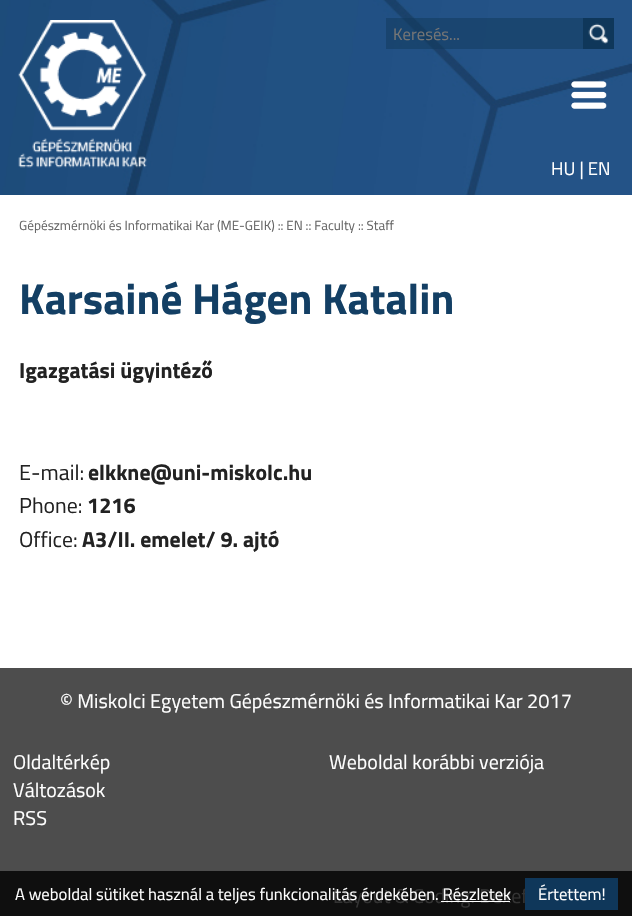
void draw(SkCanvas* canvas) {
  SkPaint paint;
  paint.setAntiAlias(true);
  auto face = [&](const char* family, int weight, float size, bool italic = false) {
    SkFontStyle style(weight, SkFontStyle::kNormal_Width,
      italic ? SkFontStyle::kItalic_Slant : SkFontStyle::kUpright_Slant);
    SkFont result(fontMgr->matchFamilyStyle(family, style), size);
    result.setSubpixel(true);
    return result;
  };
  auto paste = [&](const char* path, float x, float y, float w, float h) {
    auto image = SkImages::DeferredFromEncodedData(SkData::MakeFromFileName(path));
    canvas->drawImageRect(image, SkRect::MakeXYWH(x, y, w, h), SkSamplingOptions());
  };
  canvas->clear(0xffffffff);
  paste("img/1.png", 0, 0, 632, 195);
  paste("img/2.png", 18, 20, 129, 148);
  paint.setColor(0x800f375a);
  canvas->drawRect(SkRect::MakeXYWH(386, 18, 197, 31), paint);
  paint.setColor(0xff0f375a);
  canvas->drawRect(SkRect::MakeXYWH(583, 18, 31, 31), paint);
  paste("img/3.png", 588, 23, 21, 21);
  paste("img/4.png", 571, 81, 36, 28);
  paint.setColor(0xff4d4d4d);
  canvas->drawRect(SkRect::MakeXYWH(0, 668, 632, 203), paint);
  paint.setColor(0xff0f0f0f);
  canvas->drawRect(SkRect::MakeXYWH(0, 871, 632, 45), paint);
  auto f0 = face("Titillium Web", 400, 16.7f);
  paint.setColor(0xff757575);
  canvas->drawString("Keresés...", 393, 40, f0, paint);
  auto f1 = face("Titillium Web", 400, 18.5f);
  paint.setColor(0xffffffff);
  canvas->drawString("HU | EN", 551, 175, f1, paint);
  auto f2 = face("Titillium Web", 400, 13.3f);
  paint.setColor(0xff666666);
  canvas->drawString("Gépészmérnöki és Informatikai Kar (ME-GEIK) :: EN :: Faculty :: Staff", 19, 230, f2, paint);
  auto f3 = face("Titillium Web", 700, 43.25f);
  paint.setColor(0xff133f64);
  canvas->drawString("Karsainé Hágen Katalin", 19, 314, f3, paint);
  auto f4 = face("Titillium Web", 700, 21.75f);
  paint.setColor(0xff222222);
  canvas->drawString("Igazgatási ügyintéző", 19, 378, f4, paint);
  auto f5 = face("Titillium Web", 400, 21.75f);
  canvas->drawString("E-mail:", 19, 480, f5, paint);
  canvas->drawString("elkkne@uni-miskolc.hu", 88, 480, f4, paint);
  canvas->drawString("Phone:", 19, 513, f5, paint);
  canvas->drawString("1216", 87, 513, f4, paint);
  canvas->drawString("Office:", 19, 547, f5, paint);
  canvas->drawString("A3/II. emelet/ 9. ajtó", 82, 547, f4, paint);
  auto f6 = face("Titillium Web", 400, 20);
  paint.setColor(0xffffffff);
  {
    const struct { const char* s; float x, y; } items[] = {
      {"© Miskolci Egyetem Gépészmérnöki és Informatikai Kar 2017", 60, 708},
      {"Oldaltérkép", 13, 769},
      {"Változások", 13, 797},
      {"RSS", 13, 825},
      {"Weboldal korábbi verziója", 329, 769},
    };
    for (auto [s, x, y] : items) {
      canvas->drawString(s, x, y, f6, paint);
    }
  }
  paint.setColor(0xff333333);
  canvas->drawString("Layout & Coding: Dexef", 333, 903, f6, paint);
  paint.setColor(0xffffffff);
  canvas->drawString("A weboldal sütiket használ a teljes funkcionalitás érdekében. Részletek", 15, 900, f0, paint);
  paint.setColor(0xff0f375a);
  canvas->drawRect(SkRect::MakeXYWH(525, 878, 93, 32), paint);
  paint.setColor(0xffffffff);
  canvas->drawString("Értettem!", 538, 900, f0, paint);
  canvas->drawRect(SkRect::MakeXYWH(441, 901, 69, 1), paint);
}
